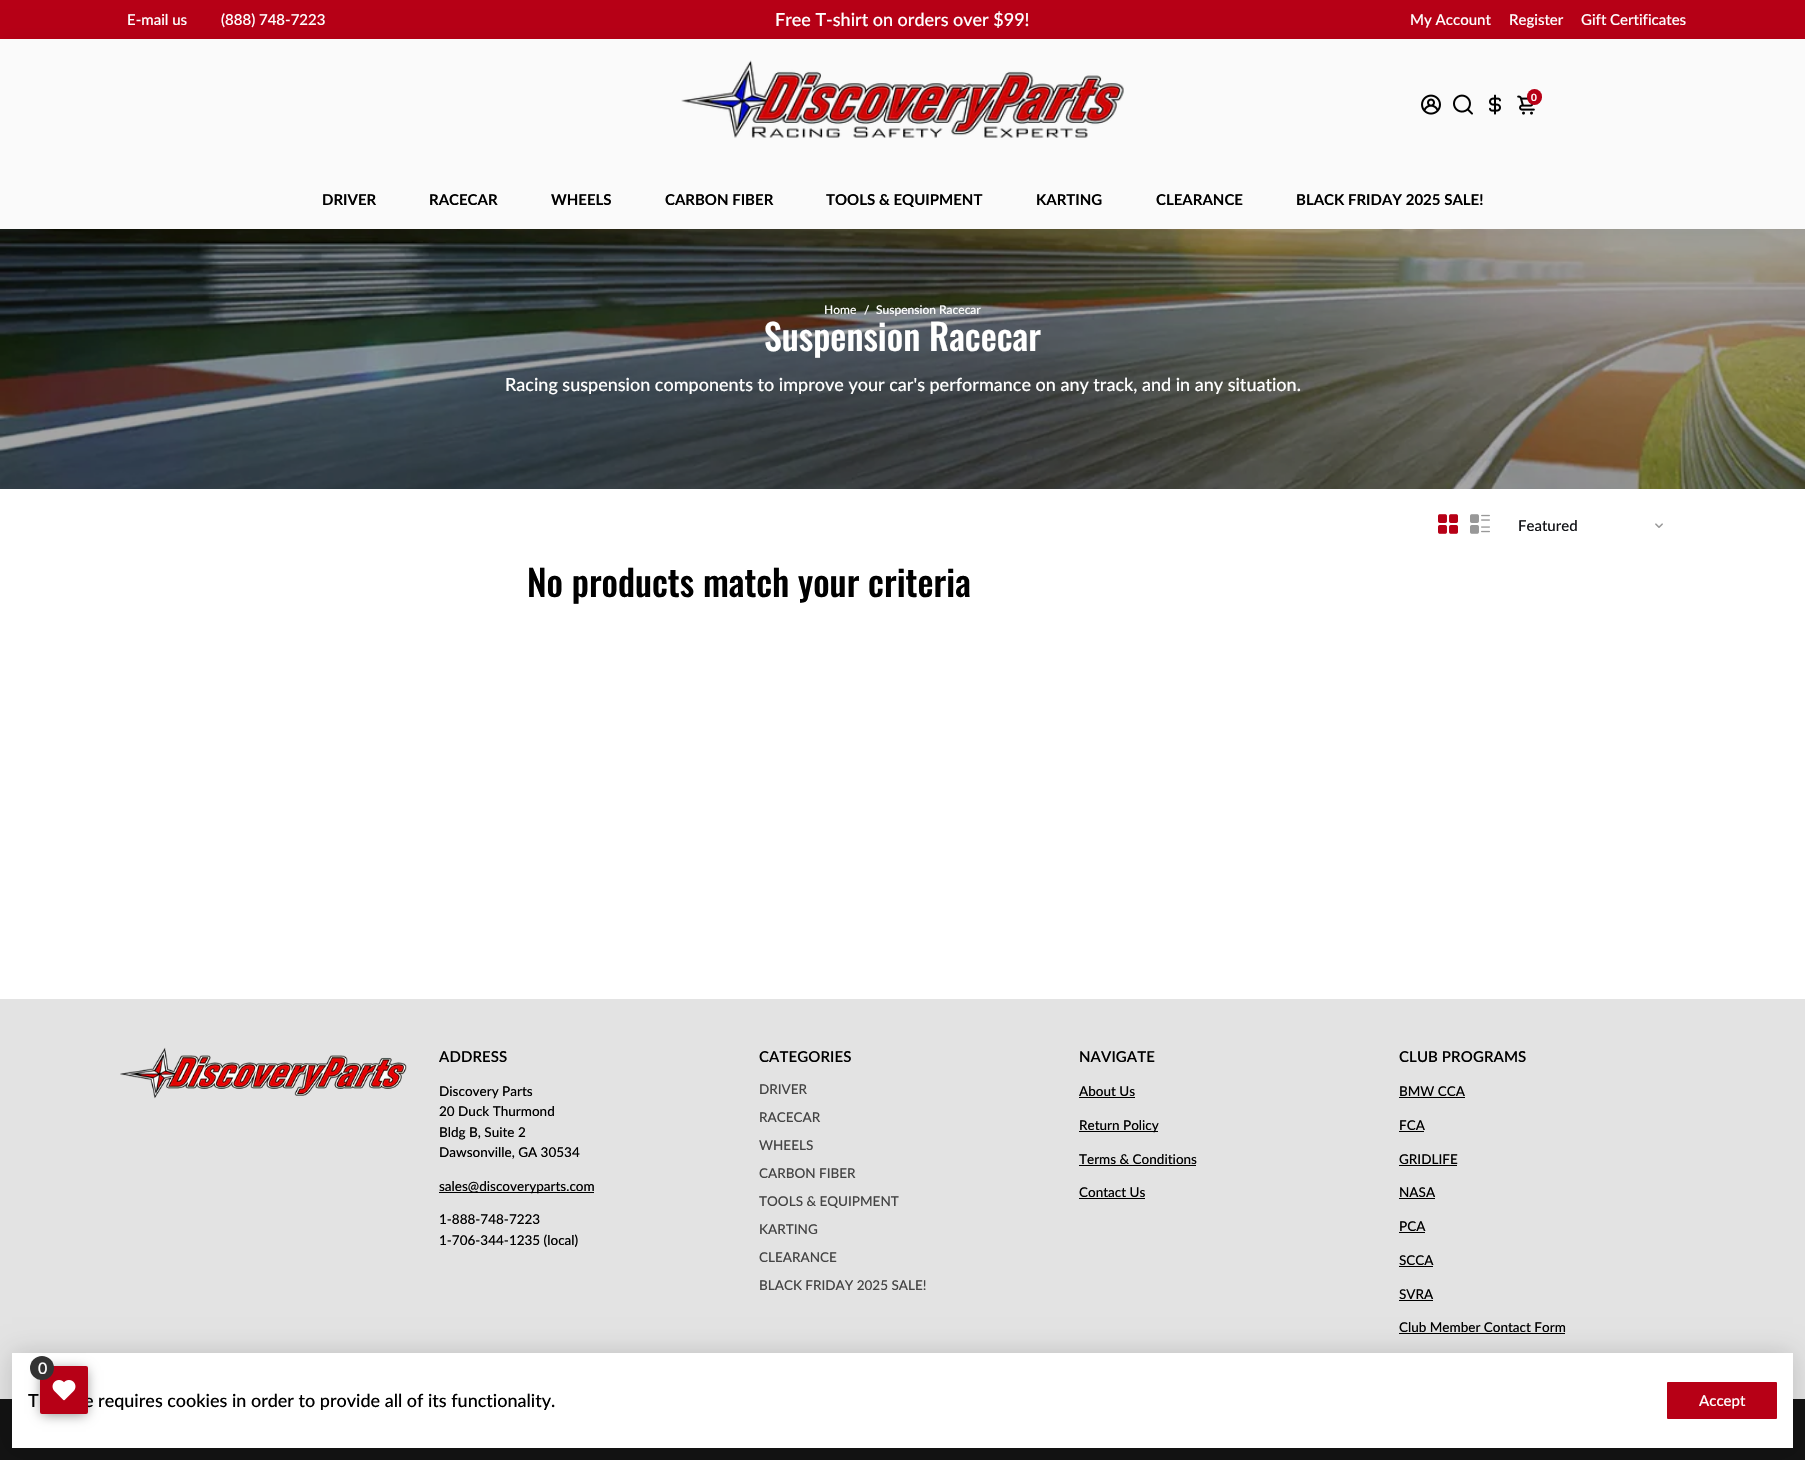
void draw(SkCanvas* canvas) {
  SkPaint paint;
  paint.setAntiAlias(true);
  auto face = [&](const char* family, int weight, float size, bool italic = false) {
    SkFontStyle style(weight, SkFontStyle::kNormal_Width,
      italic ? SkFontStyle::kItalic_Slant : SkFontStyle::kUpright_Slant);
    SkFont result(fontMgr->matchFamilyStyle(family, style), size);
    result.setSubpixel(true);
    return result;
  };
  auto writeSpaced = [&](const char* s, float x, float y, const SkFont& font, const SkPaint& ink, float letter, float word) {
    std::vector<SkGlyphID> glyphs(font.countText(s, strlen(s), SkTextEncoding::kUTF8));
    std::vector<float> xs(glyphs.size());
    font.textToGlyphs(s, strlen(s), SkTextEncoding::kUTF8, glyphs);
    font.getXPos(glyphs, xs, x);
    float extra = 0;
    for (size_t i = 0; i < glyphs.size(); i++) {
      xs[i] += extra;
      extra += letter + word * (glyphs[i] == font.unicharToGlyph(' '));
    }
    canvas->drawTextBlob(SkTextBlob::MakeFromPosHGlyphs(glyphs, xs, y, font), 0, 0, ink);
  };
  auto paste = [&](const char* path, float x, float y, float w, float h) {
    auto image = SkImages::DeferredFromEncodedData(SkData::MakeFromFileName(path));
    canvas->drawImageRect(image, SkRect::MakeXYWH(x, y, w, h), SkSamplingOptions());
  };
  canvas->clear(0xffffffff);
  paint.setColor(0xffb70016);
  canvas->drawRect(SkRect::MakeXYWH(0, 0, 1805, 39), paint);
  paste("img/6.png", 0, 229, 1805, 260);
  paint.setColor(0x0f000000);
  paint.setMaskFilter(SkMaskFilter::MakeBlur(kNormal_SkBlurStyle, 10));
  canvas->drawRect(SkRect::MakeXYWH(0, 39, 1805, 190), paint);
  paint.setMaskFilter(nullptr);
  paint.setColor(0xfffafafa);
  canvas->drawRect(SkRect::MakeXYWH(0, 39, 1805, 190), paint);
  paste("img/1.png", 681, 60, 443, 78);
  paste("img/2.png", 1421, 94, 20, 21);
  paste("img/3.png", 1453, 94, 20, 21);
  paste("img/4.png", 1489, 94, 12, 21);
  paste("img/5.png", 1517, 95, 18, 20);
  paint.setColor(0xffb70016);
  canvas->drawRoundRect(SkRect::MakeXYWH(1527, 89, 15, 16), 7.5f, 7.5f, paint);
  paste("img/7.png", 1438, 514, 20, 20);
  paste("img/8.png", 1470, 514, 20, 20);
  paste("img/9.png", 1655, 523, 8, 5);
  paint.setColor(0xffe3e3e3);
  canvas->drawRect(SkRect::MakeXYWH(0, 999, 1805, 400), paint);
  paste("img/10.png", 120, 1047, 287, 52);
  {
    const struct { float x, y, w, h; SkColor color; } items[] = {
      {439, 1192, 155, 1, 0xff000000},
      {1079, 1097, 56, 1, 0xff000000},
      {1079, 1131, 79, 1, 0xff000000},
      {1079, 1165, 117, 1, 0xff000000},
      {1079, 1198, 66, 1, 0xff000000},
      {1399, 1097, 66, 1, 0xff000000},
      {1399, 1131, 25, 1, 0xff000000},
      {1399, 1165, 58, 1, 0xff000000},
      {1399, 1198, 36, 1, 0xff000000},
      {1399, 1232, 26, 1, 0xff000000},
      {1399, 1266, 34, 1, 0xff000000},
      {1399, 1300, 34, 1, 0xff000000},
      {1399, 1333, 166, 1, 0xff000000},
      {0, 1399, 1805, 61, 0xff131313},
    };
    for (auto [x, y, w, h, color] : items) {
      paint.setColor(color);
      canvas->drawRect(SkRect::MakeXYWH(x, y, w, h), paint);
    }
  }
  paint.setColor(0x29000000);
  paint.setMaskFilter(SkMaskFilter::MakeBlur(kNormal_SkBlurStyle, 12));
  canvas->drawRect(SkRect::MakeXYWH(12, 1353, 1781, 95), paint);
  paint.setMaskFilter(nullptr);
  paint.setColor(0xffffffff);
  canvas->drawRect(SkRect::MakeXYWH(12, 1353, 1781, 95), paint);
  paint.setColor(0x80000000);
  paint.setMaskFilter(SkMaskFilter::MakeBlur(kNormal_SkBlurStyle, 6));
  canvas->drawRect(SkRect::MakeXYWH(42, 1370, 44, 44), paint);
  paint.setMaskFilter(nullptr);
  paint.setColor(0xffb70016);
  canvas->drawRoundRect(SkRect::MakeXYWH(1667, 1382, 110, 37), 1, 1, paint);
  auto f0 = face("Lato", 500, 15);
  paint.setColor(0xffffffff);
  canvas->drawString("E-mail us", 127, 25, f0, paint);
  canvas->drawString("(888) 748-7223", 221, 25, f0, paint);
  auto f1 = face("Lato", 500, 18);
  canvas->drawString("Free T-shirt on orders over $99!", 775, 26, f1, paint);
  {
    const struct { const char* s; float x, y; } items[] = {
      {"My Account", 1410, 25},
      {"Register", 1509, 25},
      {"Gift Certificates", 1581, 25},
    };
    for (auto [s, x, y] : items) {
      canvas->drawString(s, x, y, f0, paint);
    }
  }
  auto f2 = face("Lato", 700, 10);
  canvas->drawString("0", 1531, 101, f2, paint);
  auto f3 = face("Lato", 700, 15);
  paint.setColor(0xff000000);
  {
    const struct { const char* s; float x, y; } items[] = {
      {"DRIVER", 322, 205},
      {"RACECAR", 429, 205},
      {"WHEELS", 551, 205},
      {"CARBON FIBER", 665, 205},
      {"TOOLS & EQUIPMENT", 826, 205},
      {"KARTING", 1036, 205},
      {"CLEARANCE", 1156, 205},
      {"BLACK FRIDAY 2025 SALE!", 1296, 205},
    };
    for (auto [s, x, y] : items) {
      canvas->drawString(s, x, y, f3, paint);
    }
  }
  auto f4 = face("Lato", 500, 12);
  paint.setColor(0xffffffff);
  {
    const struct { const char* s; float x, y; } items[] = {
      {"Home", 824, 314},
      {"/", 864, 314},
      {"Suspension Racecar", 876, 314},
    };
    for (auto [s, x, y] : items) {
      canvas->drawString(s, x, y, f4, paint);
    }
  }
  auto f5 = face("Oswald", 500, 36);
  canvas->drawString("Suspension Racecar", 764, 351, f5, paint);
  canvas->drawString("Racing suspension components to improve your car's performance on any track, and in any situation.", 505, 391, f1, paint);
  paint.setColor(0xff121317);
  canvas->drawString("Featured", 1518, 531, f0, paint);
  paint.setColor(0xff000000);
  canvas->drawString("No products match your criteria", 527, 597, f5, paint);
  auto f6 = face("Lato", 600, 15);
  writeSpaced("ADDRESS", 439, 1062, f6, paint, 0.1f, 0);
  auto f7 = face("Lato", 500, 13.5f);
  {
    const struct { const char* s; float x, y; } items[] = {
      {"Discovery Parts", 439, 1096},
      {"20 Duck Thurmond", 439, 1116},
      {"Bldg B, Suite 2", 439, 1137},
      {"Dawsonville, GA 30534", 439, 1157},
      {"sales@discoveryparts.com", 439, 1191},
      {"1-888-748-7223", 439, 1224},
      {"1-706-344-1235 (local)", 439, 1245},
    };
    for (auto [s, x, y] : items) {
      canvas->drawString(s, x, y, f7, paint);
    }
  }
  writeSpaced("CATEGORIES", 759, 1062, f6, paint, 0.1f, 0);
  paint.setColor(0xff444444);
  {
    const struct { const char* s; float x, y; } items[] = {
      {"DRIVER", 759, 1094},
      {"RACECAR", 759, 1122},
      {"WHEELS", 759, 1150},
      {"CARBON FIBER", 759, 1178},
      {"TOOLS & EQUIPMENT", 759, 1206},
      {"KARTING", 759, 1234},
      {"CLEARANCE", 759, 1262},
      {"BLACK FRIDAY 2025 SALE!", 759, 1290},
    };
    for (auto [s, x, y] : items) {
      canvas->drawString(s, x, y, f7, paint);
    }
  }
  paint.setColor(0xff000000);
  writeSpaced("NAVIGATE", 1079, 1062, f6, paint, 0.1f, 0);
  {
    const struct { const char* s; float x, y; } items[] = {
      {"About Us", 1079, 1096},
      {"Return Policy", 1079, 1130},
      {"Terms & Conditions", 1079, 1164},
      {"Contact Us", 1079, 1197},
    };
    for (auto [s, x, y] : items) {
      canvas->drawString(s, x, y, f7, paint);
    }
  }
  writeSpaced("CLUB PROGRAMS", 1399, 1062, f6, paint, 0.1f, 0);
  {
    const struct { const char* s; float x, y; } items[] = {
      {"BMW CCA", 1399, 1096},
      {"FCA", 1399, 1130},
      {"GRIDLIFE", 1399, 1164},
      {"NASA", 1399, 1197},
      {"PCA", 1399, 1231},
      {"SCCA", 1399, 1265},
      {"SVRA", 1399, 1299},
      {"Club Member Contact Form", 1399, 1332},
    };
    for (auto [s, x, y] : items) {
      canvas->drawString(s, x, y, f7, paint);
    }
  }
  canvas->drawString("T", 28, 1407, f1, paint);
  canvas->drawString("e requires cookies in order to provide all of its functionality.", 84, 1407, f1, paint);
  paint.setColor(0xffb70016);
  canvas->drawRoundRect(SkRect::MakeXYWH(40, 1366, 48, 48), 2, 2, paint);
  paint.setColor(0xff333333);
  canvas->drawCircle(42, 1368, 12, paint);
  auto f8 = face("Lato", 500, 16);
  paint.setColor(0xffffffff);
  canvas->drawString("0", 38, 1374, f8, paint);
  paste("img/11.png", 52, 1380, 24, 21);
  canvas->drawString("Accept", 1699, 1406, f0, paint);
}
